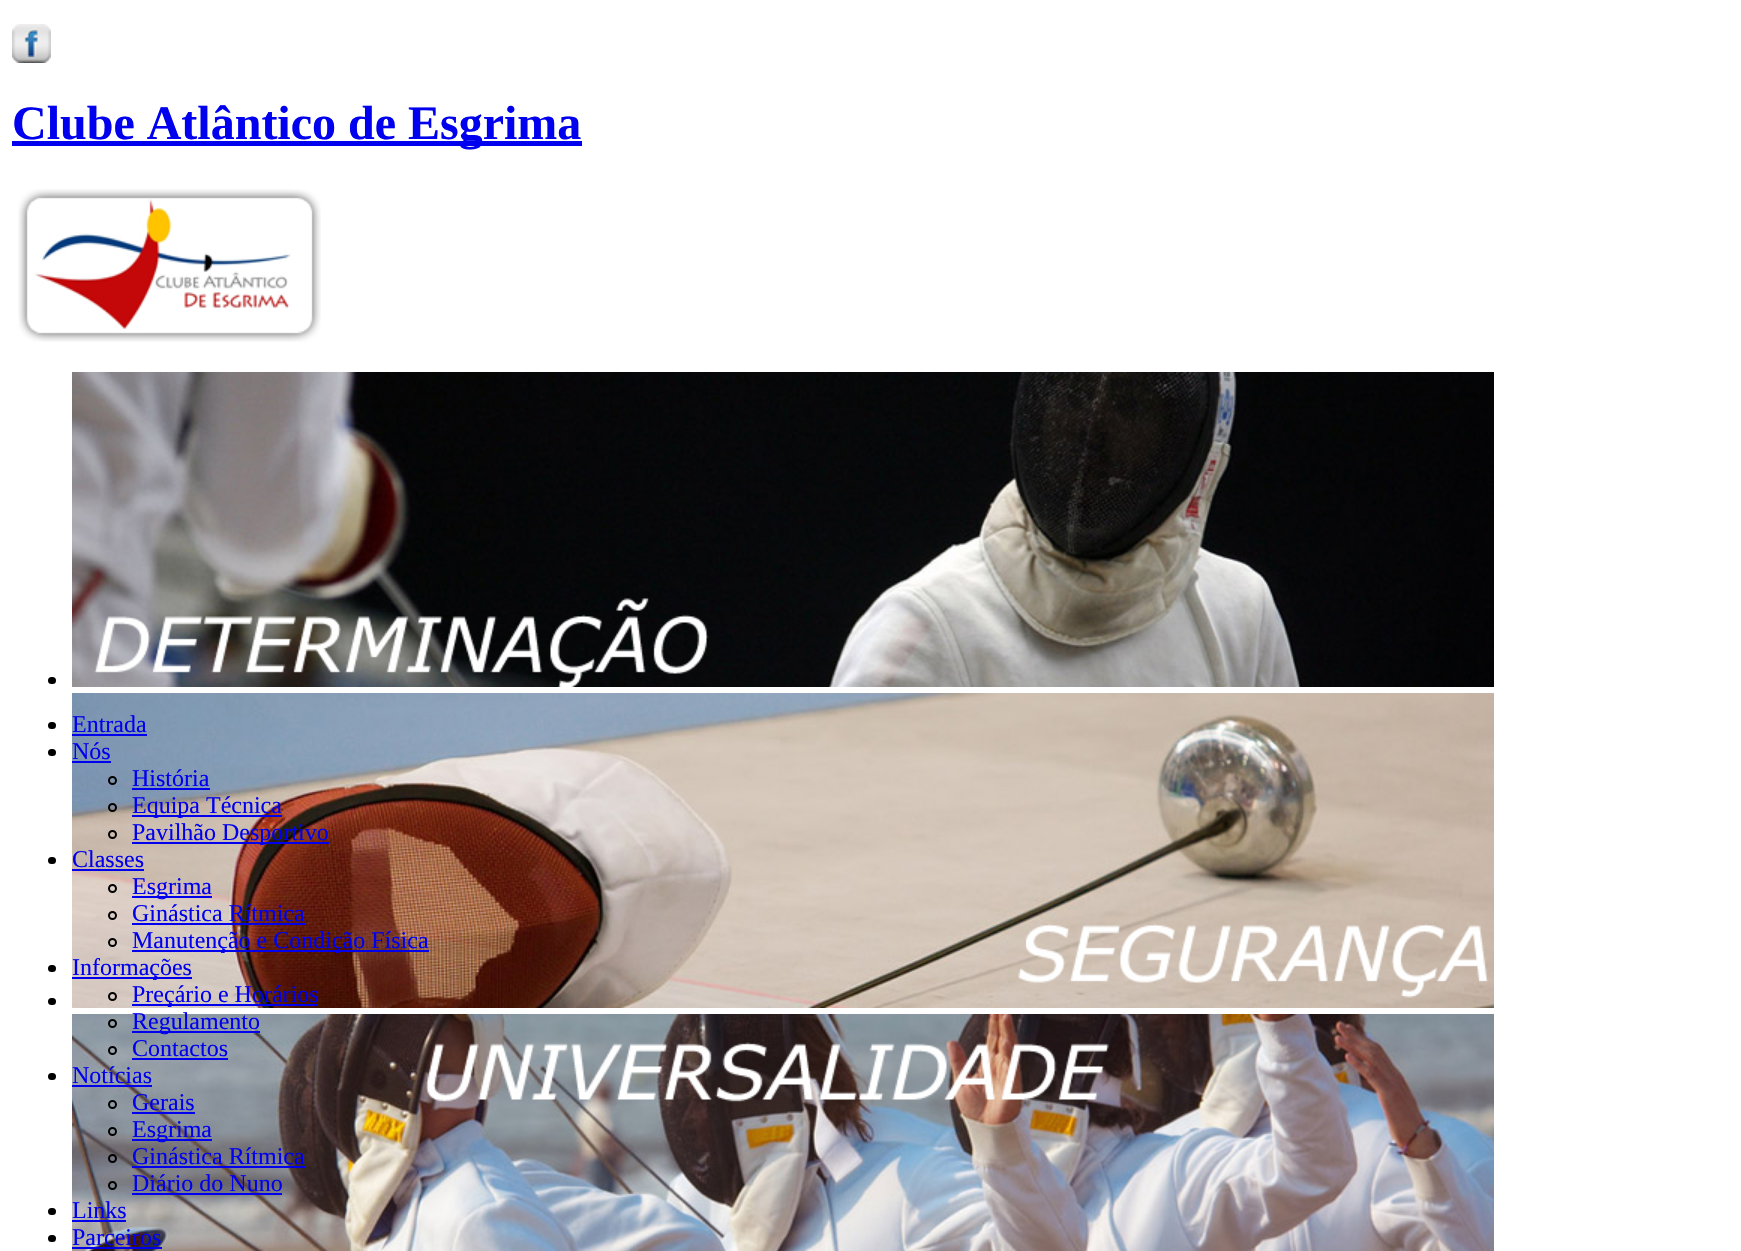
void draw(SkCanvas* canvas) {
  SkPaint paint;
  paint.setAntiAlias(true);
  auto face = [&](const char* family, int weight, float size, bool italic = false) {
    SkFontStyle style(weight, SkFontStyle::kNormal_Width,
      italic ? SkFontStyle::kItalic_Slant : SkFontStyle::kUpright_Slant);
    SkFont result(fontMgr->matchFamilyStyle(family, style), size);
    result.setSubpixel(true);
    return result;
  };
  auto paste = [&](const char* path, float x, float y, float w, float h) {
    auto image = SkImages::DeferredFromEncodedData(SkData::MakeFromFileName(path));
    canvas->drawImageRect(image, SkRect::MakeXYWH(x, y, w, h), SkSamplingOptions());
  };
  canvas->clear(0xffffffff);
  paste("img/1.png", 12, 24, 39, 39);
  paint.setColor(0xff0000ee);
  canvas->drawRect(SkRect::MakeXYWH(12, 141, 570, 5), paint);
  paste("img/2.png", 18, 189, 303, 153);
  paint.setColor(0xff000000);
  canvas->drawRoundRect(SkRect::MakeXYWH(48, 677, 8, 7), 3.5f, 3.5f, paint);
  paste("img/3.png", 72, 372, 1422, 315);
  canvas->drawRoundRect(SkRect::MakeXYWH(48, 998, 8, 7), 3.5f, 3.5f, paint);
  paste("img/4.png", 72, 693, 1422, 315);
  paste("img/5.png", 72, 1014, 1422, 237);
  canvas->drawRoundRect(SkRect::MakeXYWH(48, 722, 8, 7), 3.5f, 3.5f, paint);
  paint.setColor(0xff0000ee);
  canvas->drawRect(SkRect::MakeXYWH(72, 734, 75, 2), paint);
  paint.setColor(0xff000000);
  canvas->drawRoundRect(SkRect::MakeXYWH(48, 749, 8, 7), 3.5f, 3.5f, paint);
  paint.setColor(0xff0000ee);
  canvas->drawRect(SkRect::MakeXYWH(72, 761, 39, 2), paint);
  paint.setStroke(true);
  paint.setStrokeWidth(2);
  paint.setColor(0xff000000);
  canvas->drawCircle(112.5f, 780.5f, 3.5f, paint);
  paint.setStroke(false);
  paint.setColor(0xff0000ee);
  canvas->drawRect(SkRect::MakeXYWH(132, 788, 78, 2), paint);
  paint.setStroke(true);
  paint.setColor(0xff000000);
  canvas->drawCircle(112.5f, 807.5f, 3.5f, paint);
  paint.setStroke(false);
  paint.setColor(0xff0000ee);
  canvas->drawRect(SkRect::MakeXYWH(132, 815, 150, 2), paint);
  paint.setStroke(true);
  paint.setColor(0xff000000);
  canvas->drawCircle(112.5f, 834.5f, 3.5f, paint);
  paint.setStroke(false);
  paint.setColor(0xff0000ee);
  canvas->drawRect(SkRect::MakeXYWH(132, 842, 197, 2), paint);
  paint.setColor(0xff000000);
  canvas->drawRoundRect(SkRect::MakeXYWH(48, 857, 8, 7), 3.5f, 3.5f, paint);
  paint.setColor(0xff0000ee);
  canvas->drawRect(SkRect::MakeXYWH(72, 869, 72, 2), paint);
  paint.setStroke(true);
  paint.setColor(0xff000000);
  canvas->drawCircle(112.5f, 888.5f, 3.5f, paint);
  paint.setStroke(false);
  paint.setColor(0xff0000ee);
  canvas->drawRect(SkRect::MakeXYWH(132, 896, 80, 2), paint);
  paint.setStroke(true);
  paint.setColor(0xff000000);
  canvas->drawCircle(112.5f, 915.5f, 3.5f, paint);
  paint.setStroke(false);
  paint.setColor(0xff0000ee);
  canvas->drawRect(SkRect::MakeXYWH(132, 923, 173, 2), paint);
  paint.setStroke(true);
  paint.setColor(0xff000000);
  canvas->drawCircle(112.5f, 942.5f, 3.5f, paint);
  paint.setStroke(false);
  paint.setColor(0xff0000ee);
  canvas->drawRect(SkRect::MakeXYWH(132, 950, 297, 2), paint);
  paint.setColor(0xff000000);
  canvas->drawRoundRect(SkRect::MakeXYWH(48, 965, 8, 7), 3.5f, 3.5f, paint);
  paint.setColor(0xff0000ee);
  canvas->drawRect(SkRect::MakeXYWH(72, 977, 120, 2), paint);
  paint.setStroke(true);
  paint.setColor(0xff000000);
  canvas->drawCircle(112.5f, 996.5f, 3.5f, paint);
  paint.setStroke(false);
  paint.setColor(0xff0000ee);
  canvas->drawRect(SkRect::MakeXYWH(132, 1004, 186, 2), paint);
  paint.setStroke(true);
  paint.setColor(0xff000000);
  canvas->drawCircle(112.5f, 1023.5f, 3.5f, paint);
  paint.setStroke(false);
  paint.setColor(0xff0000ee);
  canvas->drawRect(SkRect::MakeXYWH(132, 1031, 128, 2), paint);
  paint.setStroke(true);
  paint.setColor(0xff000000);
  canvas->drawCircle(112.5f, 1050.5f, 3.5f, paint);
  paint.setStroke(false);
  paint.setColor(0xff0000ee);
  canvas->drawRect(SkRect::MakeXYWH(132, 1058, 96, 2), paint);
  paint.setColor(0xff000000);
  canvas->drawRoundRect(SkRect::MakeXYWH(48, 1073, 8, 7), 3.5f, 3.5f, paint);
  paint.setColor(0xff0000ee);
  canvas->drawRect(SkRect::MakeXYWH(72, 1085, 80, 2), paint);
  paint.setStroke(true);
  paint.setColor(0xff000000);
  canvas->drawCircle(112.5f, 1104.5f, 3.5f, paint);
  paint.setStroke(false);
  paint.setColor(0xff0000ee);
  canvas->drawRect(SkRect::MakeXYWH(132, 1112, 63, 2), paint);
  paint.setStroke(true);
  paint.setColor(0xff000000);
  canvas->drawCircle(112.5f, 1131.5f, 3.5f, paint);
  paint.setStroke(false);
  paint.setColor(0xff0000ee);
  canvas->drawRect(SkRect::MakeXYWH(132, 1139, 80, 2), paint);
  paint.setStroke(true);
  paint.setColor(0xff000000);
  canvas->drawCircle(112.5f, 1158.5f, 3.5f, paint);
  paint.setStroke(false);
  paint.setColor(0xff0000ee);
  canvas->drawRect(SkRect::MakeXYWH(132, 1166, 173, 2), paint);
  paint.setStroke(true);
  paint.setColor(0xff000000);
  canvas->drawCircle(112.5f, 1185.5f, 3.5f, paint);
  paint.setStroke(false);
  paint.setColor(0xff0000ee);
  canvas->drawRect(SkRect::MakeXYWH(132, 1193, 150, 2), paint);
  paint.setColor(0xff000000);
  canvas->drawRoundRect(SkRect::MakeXYWH(48, 1208, 8, 7), 3.5f, 3.5f, paint);
  paint.setColor(0xff0000ee);
  canvas->drawRect(SkRect::MakeXYWH(72, 1220, 54, 2), paint);
  paint.setColor(0xff000000);
  canvas->drawRoundRect(SkRect::MakeXYWH(48, 1235, 8, 7), 3.5f, 3.5f, paint);
  paint.setColor(0xff0000ee);
  canvas->drawRect(SkRect::MakeXYWH(72, 1247, 90, 2), paint);
  auto f0 = face("Liberation Serif", 700, 48);
  canvas->drawString("Clube Atlântico de Esgrima", 12, 139, f0, paint);
  auto f1 = face("Liberation Serif", 400, 24);
  {
    const struct { const char* s; float x, y; } items[] = {
      {"Entrada", 72, 732},
      {"Nós", 72, 759},
      {"História", 132, 786},
      {"Equipa Técnica", 132, 813},
      {"Pavilhão Desportivo", 132, 840},
      {"Classes", 72, 867},
      {"Esgrima", 132, 894},
      {"Ginástica Rítmica", 132, 921},
      {"Manutenção e Condição Física", 132, 948},
      {"Informações", 72, 975},
      {"Preçário e Horários", 132, 1002},
      {"Regulamento", 132, 1029},
      {"Contactos", 132, 1056},
      {"Notícias", 72, 1083},
      {"Gerais", 132, 1110},
      {"Esgrima", 132, 1137},
      {"Ginástica Rítmica", 132, 1164},
      {"Diário do Nuno", 132, 1191},
      {"Links", 72, 1218},
      {"Parceiros", 72, 1245},
    };
    for (auto [s, x, y] : items) {
      canvas->drawString(s, x, y, f1, paint);
    }
  }
}
